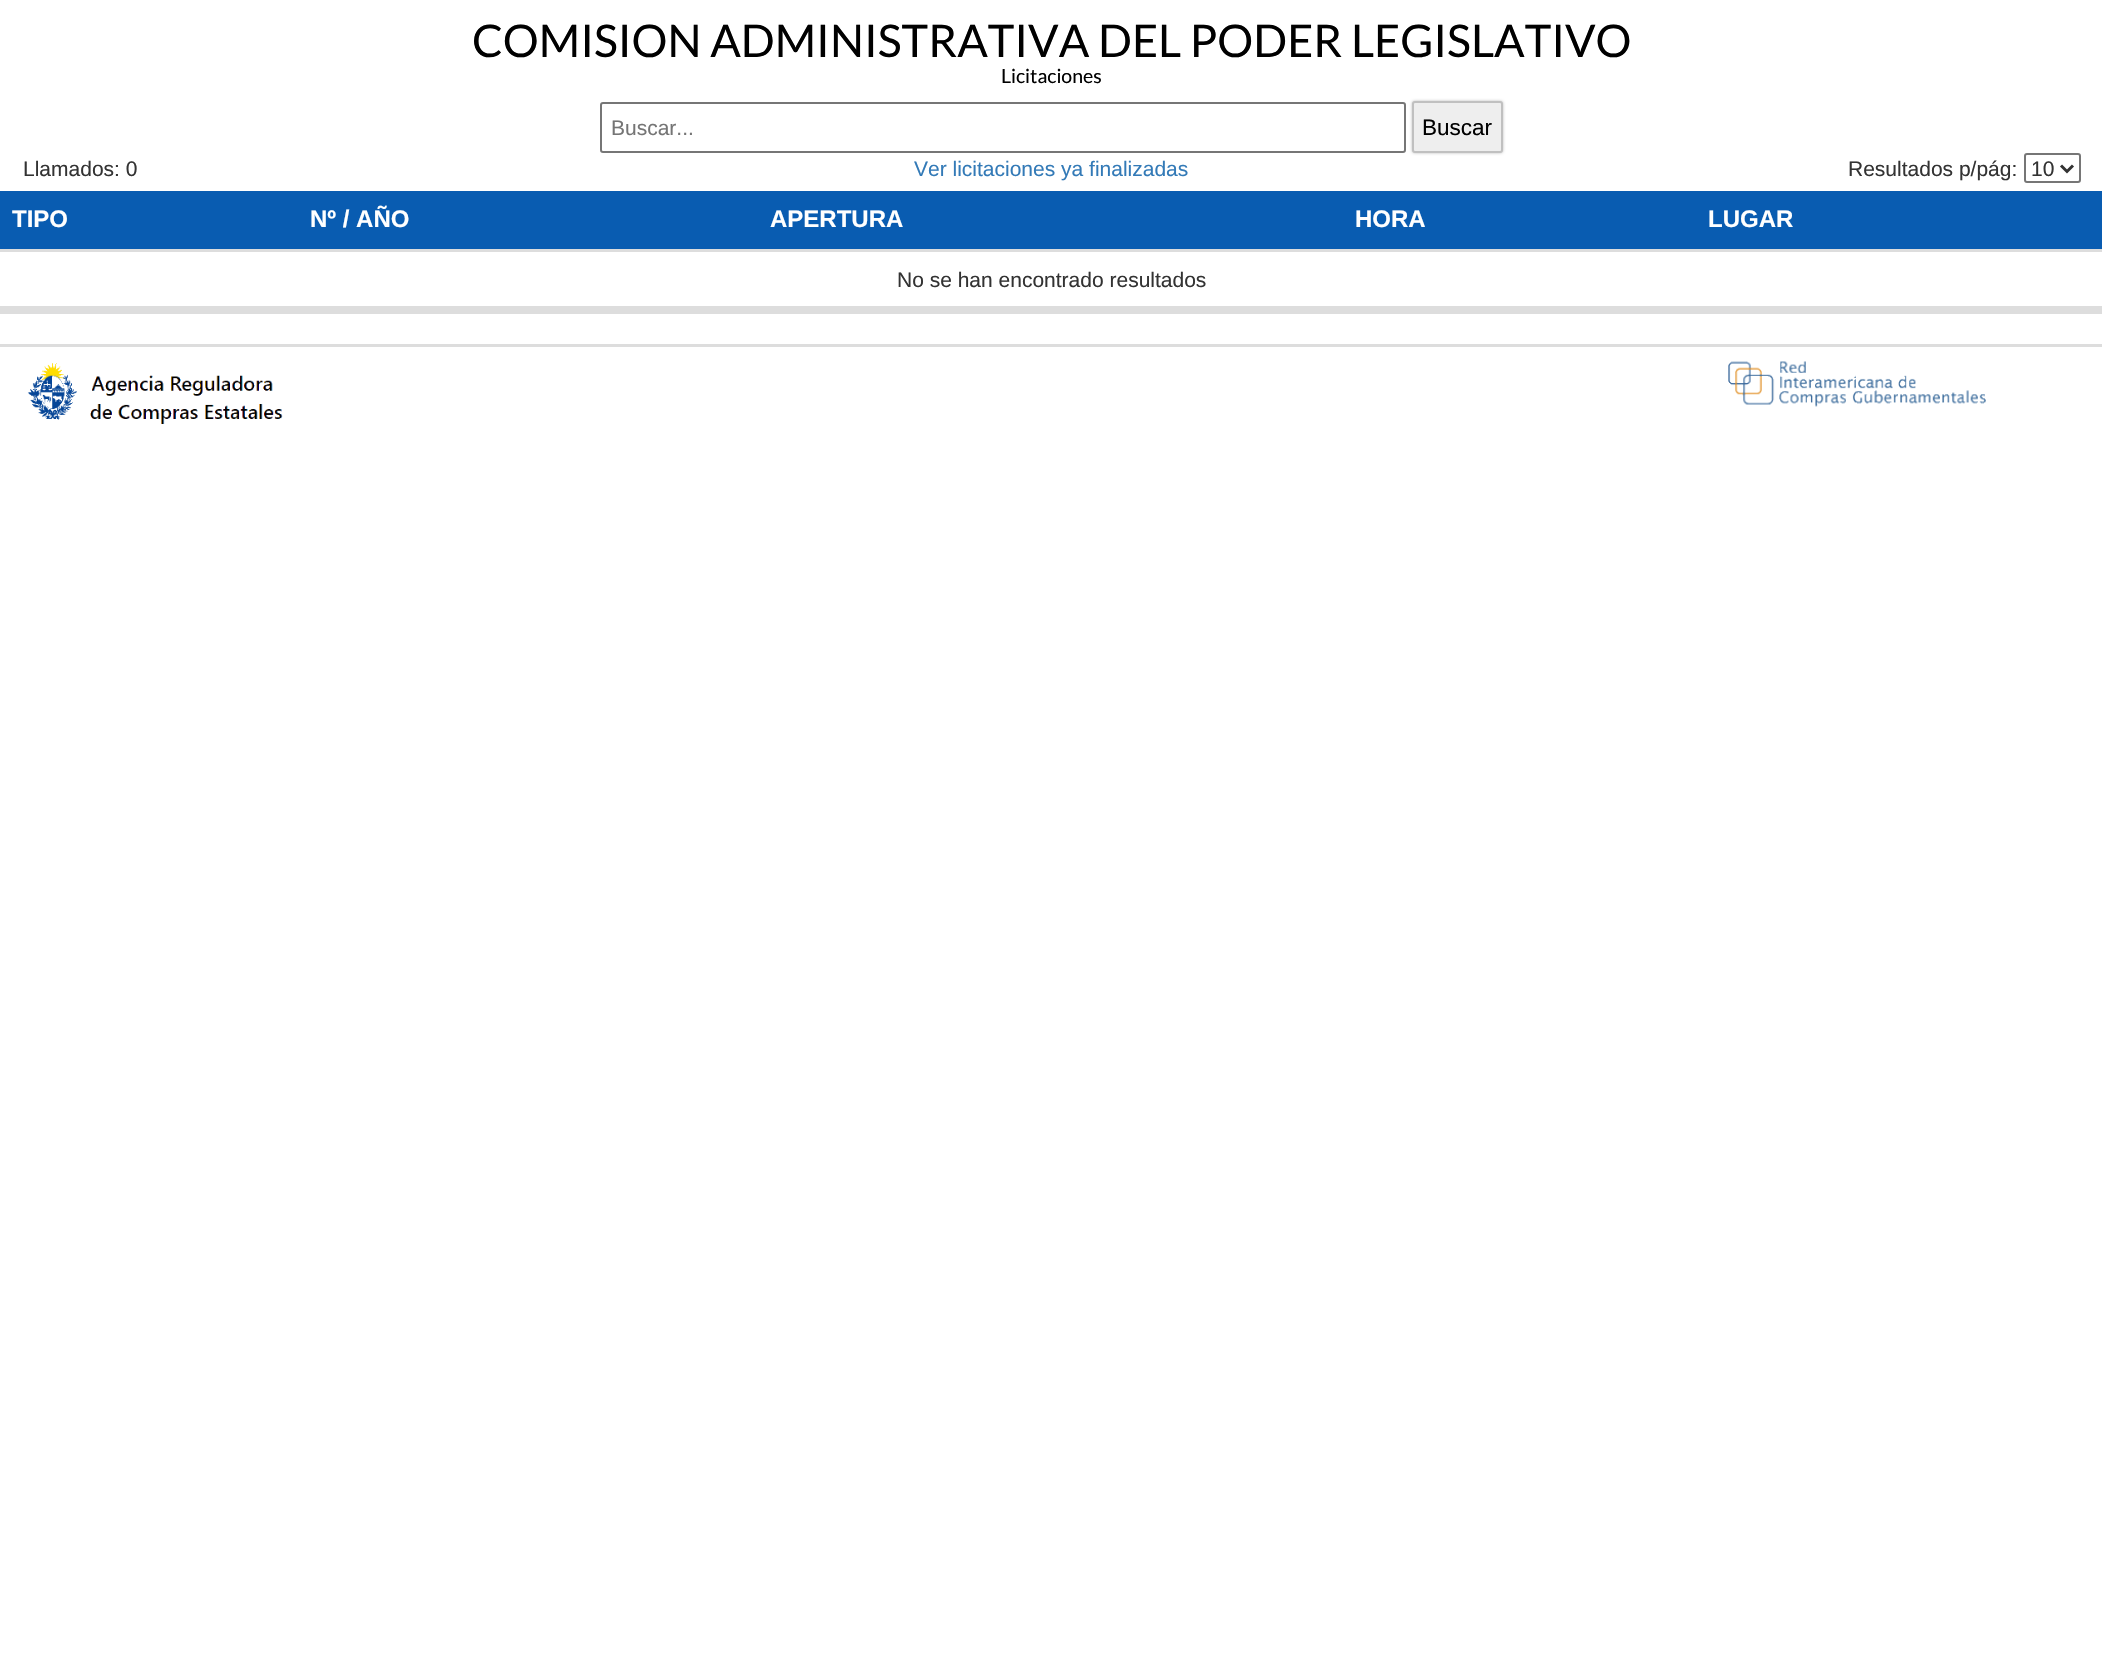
void draw(SkCanvas* canvas) {
  SkPaint paint;
  paint.setAntiAlias(true);
  auto face = [&](const char* family, int weight, float size, bool italic = false) {
    SkFontStyle style(weight, SkFontStyle::kNormal_Width,
      italic ? SkFontStyle::kItalic_Slant : SkFontStyle::kUpright_Slant);
    SkFont result(fontMgr->matchFamilyStyle(family, style), size);
    result.setSubpixel(true);
    return result;
  };
  auto paste = [&](const char* path, float x, float y, float w, float h) {
    auto image = SkImages::DeferredFromEncodedData(SkData::MakeFromFileName(path));
    canvas->drawImageRect(image, SkRect::MakeXYWH(x, y, w, h), SkSamplingOptions());
  };
  auto shape = [&](const char* data, bool evenOdd = false) {
    SkPath result = *SkParsePath::FromSVGString(data);
    if (evenOdd) result.setFillType(SkPathFillType::kEvenOdd);
    return result;
  };
  canvas->clear(0xffffffff);
  paint.setStroke(true);
  paint.setStrokeWidth(2);
  paint.setColor(0xff767676);
  canvas->drawRoundRect(SkRect::MakeXYWH(601, 103, 804, 49), 2, 2, paint);
  paint.setStroke(false);
  paint.setColor(0xffbababa);
  paint.setMaskFilter(SkMaskFilter::MakeBlur(kNormal_SkBlurStyle, 1.5f));
  canvas->drawRoundRect(SkRect::MakeXYWH(1412, 101, 91, 52), 3, 3, paint);
  paint.setMaskFilter(nullptr);
  paint.setColor(0xffeeeeee);
  canvas->drawRoundRect(SkRect::MakeXYWH(1413, 102, 89, 50), 2, 2, paint);
  paint.setStroke(true);
  paint.setColor(0xffc0c0c0);
  canvas->drawRoundRect(SkRect::MakeXYWH(1413, 102, 89, 50), 2, 2, paint);
  paint.setColor(0xff767676);
  canvas->drawRoundRect(SkRect::MakeXYWH(2025, 154, 55, 28), 2, 2, paint);
  paint.setStrokeWidth(3);
  paint.setColor(0xff333333);
  canvas->drawPath(shape("M2061 165.5L2067 171.5L2073 165.5"), paint);
  paint.setStroke(false);
  {
    const struct { float x, y, w, h; SkColor color; } items[] = {
      {0, 344, 2102, 3, 0xffdddddd},
      {0, 191, 2102, 58, 0xff095cb1},
      {0, 249, 2102, 3, 0xffdddddd},
      {0, 306, 2102, 8, 0xffdddddd},
    };
    for (auto [x, y, w, h, color] : items) {
      paint.setColor(color);
      canvas->drawRect(SkRect::MakeXYWH(x, y, w, h), paint);
    }
  }
  paste("img/1.png", 27, 363, 256, 61);
  paste("img/2.png", 1728, 361, 258, 46);
  auto f0 = face("Lato", 400, 45);
  paint.setColor(0xff000000);
  canvas->drawString("COMISION ADMINISTRATIVA DEL PODER LEGISLATIVO", 472, 57, f0, paint);
  auto f1 = face("Lato", 400, 19.5f);
  canvas->drawString("Licitaciones", 1001, 83, f1, paint);
  auto f2 = face("Liberation Sans", 400, 21);
  paint.setColor(0xff757575);
  canvas->drawString("Buscar...", 611, 135, f2, paint);
  auto f3 = face("Liberation Sans", 400, 22.5f);
  paint.setColor(0xff000000);
  canvas->drawString("Buscar", 1422, 135, f3, paint);
  paint.setColor(0xff333333);
  canvas->drawString("Llamados: 0", 23, 176, f2, paint);
  paint.setColor(0xff337ab7);
  canvas->drawString("Ver licitaciones ya finalizadas", 914, 176, f2, paint);
  paint.setColor(0xff333333);
  canvas->drawString("Resultados p/pág:", 1848, 176, f2, paint);
  canvas->drawString("10", 2031, 176, f2, paint);
  auto f4 = face("Liberation Sans", 700, 24);
  paint.setColor(0xffffffff);
  {
    const struct { const char* s; float x, y; } items[] = {
      {"TIPO", 12, 227},
      {"Nº / AÑO", 310, 227},
      {"APERTURA", 770, 227},
      {"HORA", 1355, 227},
      {"LUGAR", 1708, 227},
    };
    for (auto [s, x, y] : items) {
      canvas->drawString(s, x, y, f4, paint);
    }
  }
  paint.setColor(0xff333333);
  canvas->drawString("No se han encontrado resultados", 897, 287, f2, paint);
}
